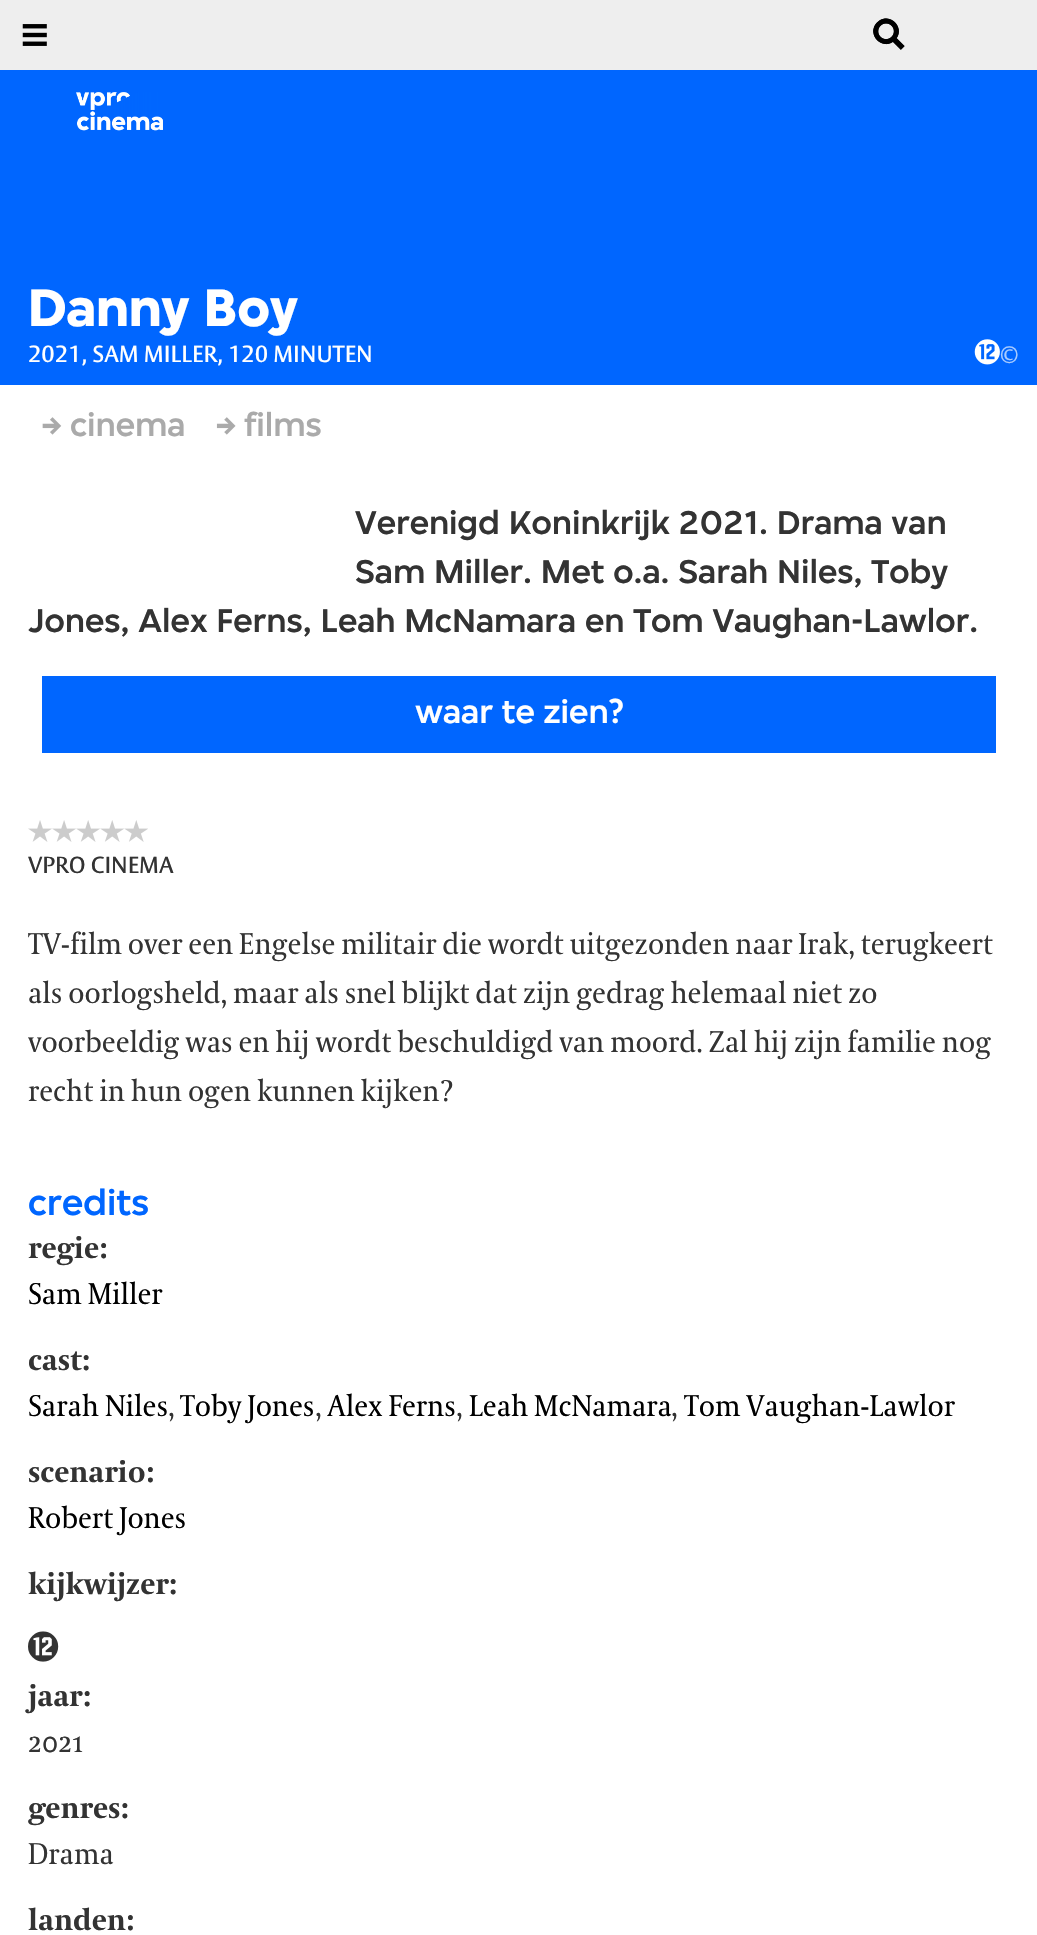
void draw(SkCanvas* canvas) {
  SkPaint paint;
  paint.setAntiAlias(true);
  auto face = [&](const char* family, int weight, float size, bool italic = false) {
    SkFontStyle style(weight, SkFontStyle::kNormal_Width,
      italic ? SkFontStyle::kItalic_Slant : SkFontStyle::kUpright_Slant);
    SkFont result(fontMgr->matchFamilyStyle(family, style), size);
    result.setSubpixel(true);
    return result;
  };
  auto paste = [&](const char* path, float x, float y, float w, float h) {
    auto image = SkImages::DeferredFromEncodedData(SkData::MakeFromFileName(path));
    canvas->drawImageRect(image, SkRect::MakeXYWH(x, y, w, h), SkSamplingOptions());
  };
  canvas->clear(0xffffffff);
  paint.setColor(0xffeeeeee);
  canvas->drawRect(SkRect::MakeXYWH(0, 0, 1037, 70), paint);
  paste("img/1.png", 22, 24, 25, 22);
  paste("img/2.png", 873, 18, 32, 32);
  paste("img/3.png", 873, 18, 32, 32);
  paint.setColor(0xff0066ff);
  canvas->drawRect(SkRect::MakeXYWH(0, 70, 1037, 315), paint);
  paste("img/4.png", 974, 339, 26, 26);
  paste("img/5.png", 76, 92, 87, 39);
  paste("img/6.png", 42, 417, 20, 18);
  paste("img/7.png", 216, 417, 20, 18);
  canvas->drawRect(SkRect::MakeXYWH(42, 676, 954, 77), paint);
  paste("img/8.png", 28, 820, 120, 22);
  paste("img/9.png", 28, 1631, 31, 31);
  auto f0 = face("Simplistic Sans", 700, 56);
  paint.setColor(0xffffffff);
  canvas->drawString("Danny Boy", 28, 326, f0, paint);
  auto f1 = face("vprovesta", 400, 22.75f);
  canvas->drawString("2021, SAM MILLER, 120 MINUTEN", 28, 362, f1, paint);
  auto f2 = face("vprovesta", 400, 19);
  paint.setColor(0xffa8cbff);
  canvas->drawString("©", 1000, 360, f2, paint);
  auto f3 = face("Simplistic Sans", 500, 35);
  paint.setColor(0xffaaaaaa);
  canvas->drawString("cinema", 70, 436, f3, paint);
  canvas->drawString("films", 244, 436, f3, paint);
  paint.setColor(0xff333333);
  {
    const struct { const char* s; float x, y; } items[] = {
      {"Verenigd Koninkrijk 2021. Drama van", 355, 534},
      {"Sam Miller. Met o.a. Sarah Niles, Toby", 355, 583},
      {"Jones, Alex Ferns, Leah McNamara en Tom Vaughan-Lawlor.", 28, 632},
    };
    for (auto [s, x, y] : items) {
      canvas->drawString(s, x, y, f3, paint);
    }
  }
  paint.setColor(0xffffffff);
  canvas->drawString("waar te zien?", 415, 723, f3, paint);
  paint.setColor(0xff333333);
  canvas->drawString("VPRO CINEMA", 28, 873, f1, paint);
  auto f4 = face("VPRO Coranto", 400, 29.75f);
  {
    const struct { const char* s; float x, y; } items[] = {
      {"TV-film over een Engelse militair die wordt uitgezonden naar Irak, terugkeert", 28, 954},
      {"als oorlogsheld, maar als snel blijkt dat zijn gedrag helemaal niet zo", 28, 1003},
      {"voorbeeldig was en hij wordt beschuldigd van moord. Zal hij zijn familie nog", 28, 1052},
      {"recht in hun ogen kunnen kijken?", 28, 1101},
    };
    for (auto [s, x, y] : items) {
      canvas->drawString(s, x, y, f4, paint);
    }
  }
  auto f5 = face("Simplistic Sans", 500, 38.5f);
  paint.setColor(0xff0066ff);
  canvas->drawString("credits", 28, 1215, f5, paint);
  auto f6 = face("VPRO Coranto", 700, 29.75f);
  paint.setColor(0xff333333);
  canvas->drawString("regie:", 28, 1258, f6, paint);
  paint.setColor(0xff000000);
  canvas->drawString("Sam Miller", 28, 1304, f4, paint);
  paint.setColor(0xff333333);
  canvas->drawString("cast:", 28, 1370, f6, paint);
  paint.setColor(0xff000000);
  canvas->drawString("Sarah Niles", 28, 1416, f4, paint);
  paint.setColor(0xff333333);
  canvas->drawString(",", 168, 1416, f4, paint);
  paint.setColor(0xff000000);
  canvas->drawString("Toby Jones", 180, 1416, f4, paint);
  paint.setColor(0xff333333);
  canvas->drawString(",", 315, 1416, f4, paint);
  paint.setColor(0xff000000);
  canvas->drawString("Alex Ferns", 327, 1416, f4, paint);
  paint.setColor(0xff333333);
  canvas->drawString(",", 456, 1416, f4, paint);
  paint.setColor(0xff000000);
  canvas->drawString("Leah McNamara", 469, 1416, f4, paint);
  paint.setColor(0xff333333);
  canvas->drawString(",", 671, 1416, f4, paint);
  paint.setColor(0xff000000);
  canvas->drawString("Tom Vaughan-Lawlor", 684, 1416, f4, paint);
  paint.setColor(0xff333333);
  canvas->drawString("scenario:", 28, 1482, f6, paint);
  paint.setColor(0xff000000);
  canvas->drawString("Robert Jones", 28, 1528, f4, paint);
  paint.setColor(0xff333333);
  canvas->drawString("kijkwijzer:", 28, 1594, f6, paint);
  canvas->drawString("jaar:", 28, 1706, f6, paint);
  canvas->drawString("2021", 28, 1752, f4, paint);
  canvas->drawString("genres:", 28, 1818, f6, paint);
  canvas->drawString("Drama", 28, 1864, f4, paint);
  canvas->drawString("landen:", 28, 1930, f6, paint);
}
